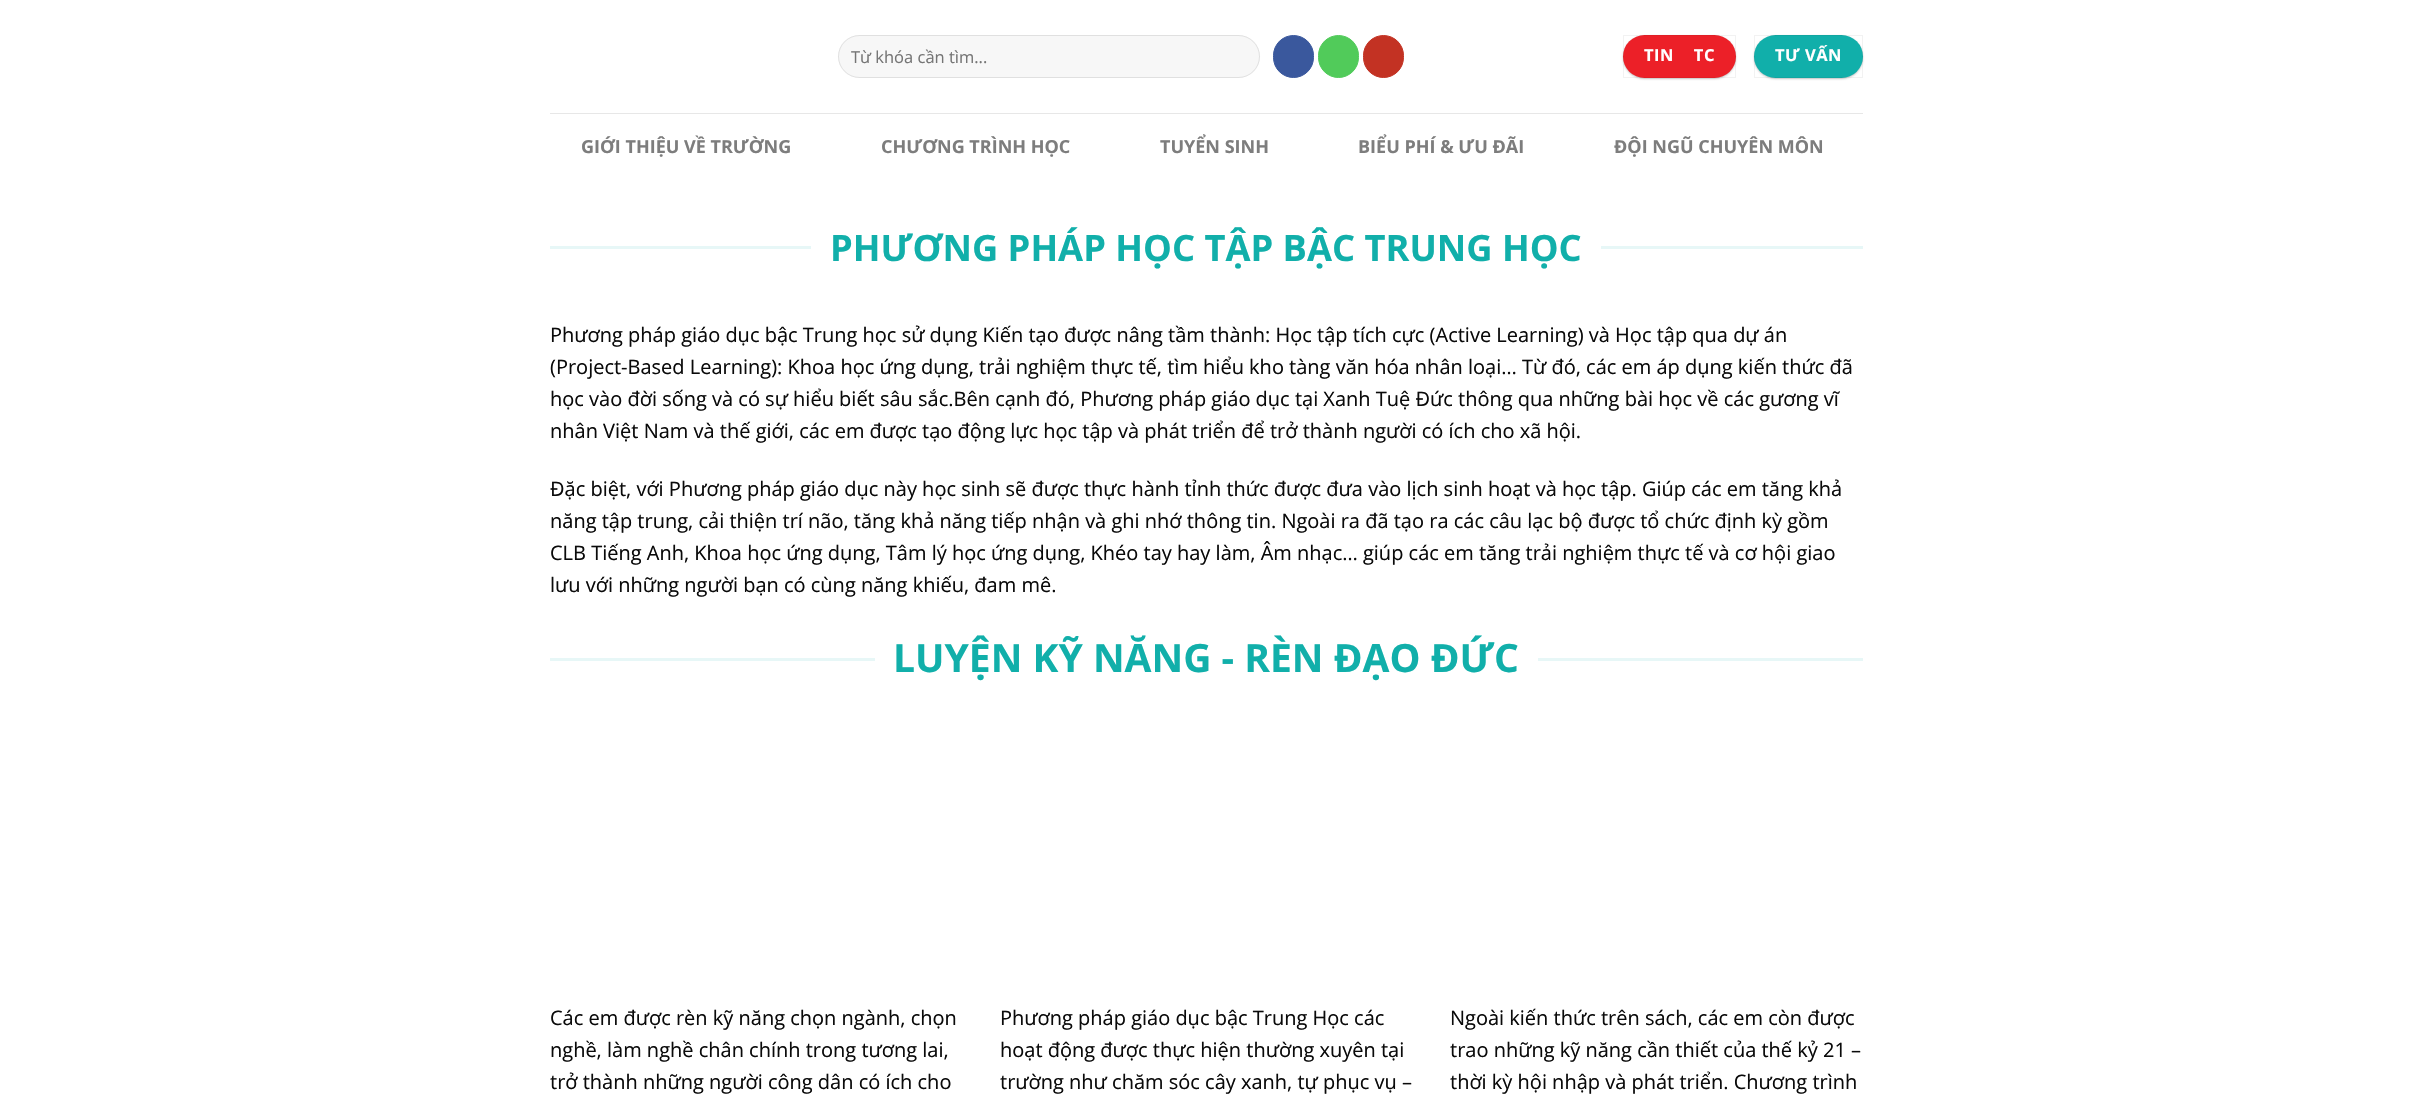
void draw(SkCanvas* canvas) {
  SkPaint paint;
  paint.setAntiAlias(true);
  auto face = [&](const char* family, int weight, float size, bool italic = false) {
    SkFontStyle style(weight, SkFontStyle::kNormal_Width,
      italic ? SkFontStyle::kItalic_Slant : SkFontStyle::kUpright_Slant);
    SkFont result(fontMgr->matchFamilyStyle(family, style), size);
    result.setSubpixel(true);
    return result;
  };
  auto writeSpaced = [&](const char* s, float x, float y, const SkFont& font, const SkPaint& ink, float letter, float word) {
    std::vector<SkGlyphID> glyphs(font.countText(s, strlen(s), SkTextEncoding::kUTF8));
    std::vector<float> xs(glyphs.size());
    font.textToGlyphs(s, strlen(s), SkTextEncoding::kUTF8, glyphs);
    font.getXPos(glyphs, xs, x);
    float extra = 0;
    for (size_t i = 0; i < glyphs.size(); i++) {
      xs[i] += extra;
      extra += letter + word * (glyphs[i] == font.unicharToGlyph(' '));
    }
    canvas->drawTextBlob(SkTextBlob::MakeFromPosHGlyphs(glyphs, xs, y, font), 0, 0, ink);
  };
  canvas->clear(0xffffffff);
  paint.setColor(0xfff7f7f7);
  canvas->drawRoundRect(SkRect::MakeXYWH(838, 35, 422, 43), 21.5f, 21.5f, paint);
  paint.setStroke(true);
  paint.setStrokeWidth(1);
  paint.setColor(0x17000000);
  canvas->drawRoundRect(SkRect::MakeXYWH(838.5f, 35.5f, 421, 42), 21, 21, paint);
  paint.setStroke(false);
  paint.setColor(0xff3a589d);
  canvas->drawRoundRect(SkRect::MakeXYWH(1273.5f, 35.5f, 40, 42), 20, 20, paint);
  paint.setStroke(true);
  canvas->drawRoundRect(SkRect::MakeXYWH(1273.5f, 35.5f, 40, 42), 20, 20, paint);
  paint.setStroke(false);
  paint.setColor(0xff51cb5a);
  canvas->drawRoundRect(SkRect::MakeXYWH(1318.5f, 35.5f, 40, 42), 20, 20, paint);
  paint.setStroke(true);
  canvas->drawRoundRect(SkRect::MakeXYWH(1318.5f, 35.5f, 40, 42), 20, 20, paint);
  paint.setStroke(false);
  paint.setColor(0xffc33223);
  canvas->drawRoundRect(SkRect::MakeXYWH(1363.5f, 35.5f, 40, 42), 20, 20, paint);
  paint.setStroke(true);
  canvas->drawRoundRect(SkRect::MakeXYWH(1363.5f, 35.5f, 40, 42), 20, 20, paint);
  paint.setStroke(false);
  paint.setColor(0x3d000000);
  paint.setMaskFilter(SkMaskFilter::MakeBlur(kNormal_SkBlurStyle, 1));
  canvas->drawRoundRect(SkRect::MakeXYWH(1623, 36, 113, 43), 21.5f, 21.5f, paint);
  paint.setMaskFilter(nullptr);
  paint.setColor(0xffec2028);
  canvas->drawRoundRect(SkRect::MakeXYWH(1623, 35, 113, 43), 21.5f, 21.5f, paint);
  paint.setStroke(true);
  paint.setColor(0x0d000000);
  canvas->drawRect(SkRect::MakeXYWH(1623.5f, 35.5f, 112, 42), paint);
  paint.setStroke(false);
  paint.setColor(0x3d000000);
  paint.setMaskFilter(SkMaskFilter::MakeBlur(kNormal_SkBlurStyle, 1));
  canvas->drawRoundRect(SkRect::MakeXYWH(1754, 36, 109, 43), 21.5f, 21.5f, paint);
  paint.setMaskFilter(nullptr);
  paint.setColor(0xff11afaa);
  canvas->drawRoundRect(SkRect::MakeXYWH(1754, 35, 109, 43), 21.5f, 21.5f, paint);
  paint.setStroke(true);
  paint.setColor(0x0d000000);
  canvas->drawRect(SkRect::MakeXYWH(1754.5f, 35.5f, 108, 42), paint);
  paint.setStroke(false);
  {
    const struct { float x, y, w, h; SkColor color; } items[] = {
      {550, 113, 1313, 1, 0xffe7e7e7},
      {550, 246, 261, 3, 0xffe7f7f7},
      {1601, 246, 262, 3, 0xffe7f7f7},
      {550, 658, 325, 3, 0xffe7f7f7},
      {1538, 658, 325, 3, 0xffe7f7f7},
    };
    for (auto [x, y, w, h, color] : items) {
      paint.setColor(color);
      canvas->drawRect(SkRect::MakeXYWH(x, y, w, h), paint);
    }
  }
  auto f0 = face("Open Sans", 400, 16.5f);
  paint.setColor(0xff757575);
  canvas->drawString("Từ khóa cần tìm...", 851, 63, f0, paint);
  auto f1 = face("Open Sans", 700, 16.5f);
  paint.setColor(0xffffffff);
  writeSpaced("TIN T", 1644, 61, f1, paint, 0.5f, 15);
  writeSpaced("C", 1704, 61, f1, paint, 0.5f, 0);
  writeSpaced("TƯ VẤN", 1775, 61, f1, paint, 0.5f, 0);
  auto f2 = face("Open Sans", 700, 18);
  paint.setColor(0xff7d7d7d);
  {
    const struct { const char* s; float x, y; } items[] = {
      {"GIỚI THIỆU VỀ TRƯỜNG", 581, 153},
      {"CHƯƠNG TRÌNH HỌC", 881, 153},
      {"TUYỂN SINH", 1160, 153},
      {"BIỂU PHÍ & ƯU ĐÃI", 1358, 153},
      {"ĐỘI NGŨ CHUYÊN MÔN", 1614, 153},
    };
    for (auto [s, x, y] : items) {
      canvas->drawString(s, x, y, f2, paint);
    }
  }
  auto f3 = face("Open Sans", 700, 36.25f);
  paint.setColor(0xff11afaa);
  canvas->drawString("PHƯƠNG PHÁP HỌC TẬP BẬC TRUNG HỌC", 830, 261, f3, paint);
  auto f4 = face("Open Sans", 400, 20);
  paint.setColor(0xff0a0a0a);
  {
    const struct { const char* s; float x, y; } items[] = {
      {"Phương pháp giáo dục bậc Trung học sử dụng Kiến tạo được nâng tầm thành: Học tập tích cực (Active Learning) và Học tập qua dự án", 550, 342},
      {"(Project-Based Learning): Khoa học ứng dụng, trải nghiệm thực tế, tìm hiểu kho tàng văn hóa nhân loại… Từ đó, các em áp dụng kiến thức đã", 550, 374},
      {"học vào đời sống và có sự hiểu biết sâu sắc.Bên cạnh đó, Phương pháp giáo dục tại Xanh Tuệ Đức thông qua những bài học về các gương vĩ", 550, 406},
      {"nhân Việt Nam và thế giới, các em được tạo động lực học tập và phát triển để trở thành người có ích cho xã hội.", 550, 438},
      {"Đặc biệt, với Phương pháp giáo dục này học sinh sẽ được thực hành tỉnh thức được đưa vào lịch sinh hoạt và học tập. Giúp các em tăng khả", 550, 496},
      {"năng tập trung, cải thiện trí não, tăng khả năng tiếp nhận và ghi nhớ thông tin. Ngoài ra đã tạo ra các câu lạc bộ được tổ chức định kỳ gồm", 550, 528},
      {"CLB Tiếng Anh, Khoa học ứng dụng, Tâm lý học ứng dụng, Khéo tay hay làm, Âm nhạc… giúp các em tăng trải nghiệm thực tế và cơ hội giao", 550, 560},
      {"lưu với những người bạn có cùng năng khiếu, đam mê.", 550, 592},
    };
    for (auto [s, x, y] : items) {
      canvas->drawString(s, x, y, f4, paint);
    }
  }
  auto f5 = face("Open Sans", 700, 39);
  paint.setColor(0xff11afaa);
  canvas->drawString("LUYỆN KỸ NĂNG - RÈN ĐẠO ĐỨC", 893, 672, f5, paint);
  paint.setColor(0xff0a0a0a);
  {
    const struct { const char* s; float x, y; } items[] = {
      {"Các em được rèn kỹ năng chọn ngành, chọn", 550, 1025},
      {"nghề, làm nghề chân chính trong tương lai,", 550, 1057},
      {"trở thành những người công dân có ích cho", 550, 1089},
      {"Phương pháp giáo dục bậc Trung Học các", 1000, 1025},
      {"hoạt động được thực hiện thường xuyên tại", 1000, 1057},
      {"trường như chăm sóc cây xanh, tự phục vụ –", 1000, 1089},
      {"Ngoài kiến thức trên sách, các em còn được", 1450, 1025},
      {"trao những kỹ năng cần thiết của thế kỷ 21 –", 1450, 1057},
      {"thời kỳ hội nhập và phát triển. Chương trình", 1450, 1089},
    };
    for (auto [s, x, y] : items) {
      canvas->drawString(s, x, y, f4, paint);
    }
  }
}
